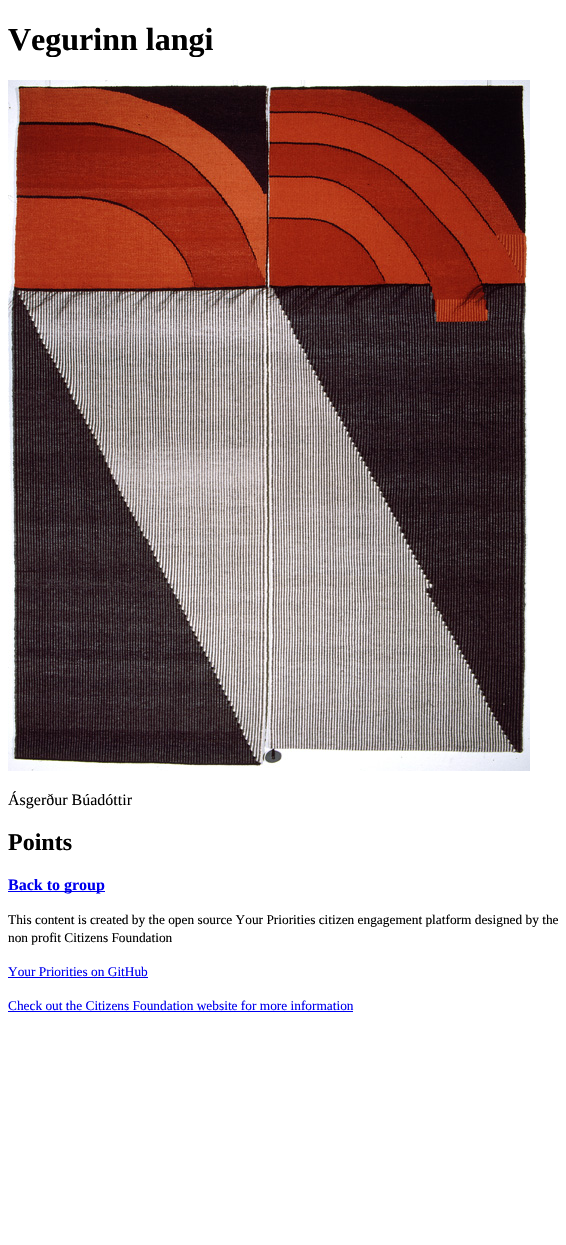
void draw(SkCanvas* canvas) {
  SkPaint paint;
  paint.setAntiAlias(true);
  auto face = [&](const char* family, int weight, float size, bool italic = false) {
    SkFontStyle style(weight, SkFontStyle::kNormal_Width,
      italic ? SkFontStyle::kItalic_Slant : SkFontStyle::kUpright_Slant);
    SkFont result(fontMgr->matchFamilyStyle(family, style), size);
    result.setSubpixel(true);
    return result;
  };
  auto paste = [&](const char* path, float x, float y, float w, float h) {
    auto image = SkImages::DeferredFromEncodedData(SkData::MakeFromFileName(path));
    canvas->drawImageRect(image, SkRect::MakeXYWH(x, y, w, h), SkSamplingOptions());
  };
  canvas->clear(0xffffffff);
  paste("img/1.png", 8, 80, 522, 691);
  {
    const struct { float x, y, w, h; SkColor color; } items[] = {
      {8, 891, 97, 1, 0xff0000ee},
      {8, 977, 140, 1, 0xff0000ee},
      {8, 1011, 345, 1, 0xff0000ee},
    };
    for (auto [x, y, w, h, color] : items) {
      paint.setColor(color);
      canvas->drawRect(SkRect::MakeXYWH(x, y, w, h), paint);
    }
  }
  auto f0 = face("Liberation Serif", 700, 32);
  paint.setColor(0xff000000);
  canvas->drawString("Vegurinn langi", 8, 50, f0, paint);
  auto f1 = face("Liberation Serif", 400, 16);
  canvas->drawString("Ásgerður Búadóttir", 8, 805, f1, paint);
  auto f2 = face("Liberation Serif", 700, 24);
  canvas->drawString("Points", 8, 850, f2, paint);
  auto f3 = face("Liberation Serif", 700, 16);
  paint.setColor(0xff0000ee);
  canvas->drawString("Back to group", 8, 890, f3, paint);
  auto f4 = face("Liberation Serif", 400, 13.35f);
  paint.setColor(0xff000000);
  canvas->drawString("This content is created by the open source Your Priorities citizen engagement platform designed by the", 8, 924, f4, paint);
  canvas->drawString("non profit Citizens Foundation", 8, 942, f4, paint);
  paint.setColor(0xff0000ee);
  canvas->drawString("Your Priorities on GitHub", 8, 976, f4, paint);
  canvas->drawString("Check out the Citizens Foundation website for more information", 8, 1010, f4, paint);
}
